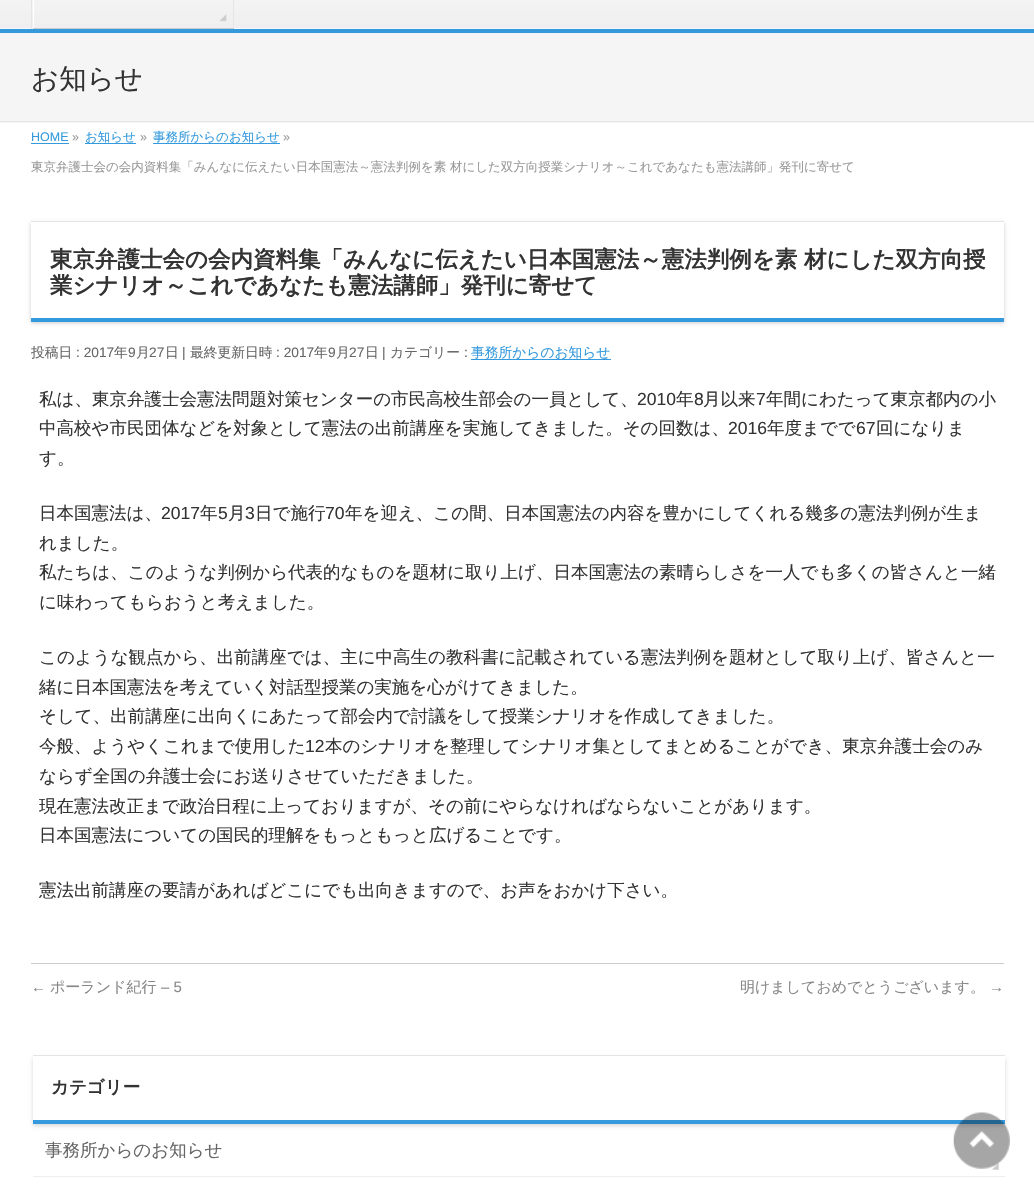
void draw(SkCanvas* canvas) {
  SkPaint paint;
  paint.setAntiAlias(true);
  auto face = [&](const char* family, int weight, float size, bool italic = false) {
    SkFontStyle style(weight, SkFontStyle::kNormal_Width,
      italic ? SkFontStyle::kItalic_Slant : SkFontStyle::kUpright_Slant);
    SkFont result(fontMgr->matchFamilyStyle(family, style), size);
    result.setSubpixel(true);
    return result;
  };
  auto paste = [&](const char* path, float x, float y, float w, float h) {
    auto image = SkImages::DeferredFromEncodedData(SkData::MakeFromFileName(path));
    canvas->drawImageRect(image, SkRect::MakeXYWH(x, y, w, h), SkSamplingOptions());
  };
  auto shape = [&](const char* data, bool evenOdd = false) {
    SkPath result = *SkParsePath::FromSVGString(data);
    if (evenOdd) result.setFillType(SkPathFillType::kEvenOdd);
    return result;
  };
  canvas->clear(0xffffffff);
  paste("img/1.png", 0, 0, 1034, 29);
  {
    const struct { float x, y, w, h; SkColor color; } items[] = {
      {0, 29, 1034, 4, 0xff359add},
      {31, 0, 1, 29, 0xffe5e5e5},
      {33, 0, 1, 29, 0xffffffff},
    };
    for (auto [x, y, w, h, color] : items) {
      paint.setColor(color);
      canvas->drawRect(SkRect::MakeXYWH(x, y, w, h), paint);
    }
  }
  paste("img/2.png", 220, 14, 7, 8);
  {
    const struct { float x, y, w, h; SkColor color; } items[] = {
      {233, 0, 1, 29, 0xffe5e5e5},
      {33, 28, 201, 1, 0xffcccccc},
      {0, 33, 1034, 90, 0xfff5f5f5},
      {0, 121, 1034, 1, 0xffe5e5e5},
      {31, 143, 38, 1, 0xff359add},
      {85, 143, 51, 1, 0xff359add},
      {153, 143, 127, 1, 0xff359add},
    };
    for (auto [x, y, w, h, color] : items) {
      paint.setColor(color);
      canvas->drawRect(SkRect::MakeXYWH(x, y, w, h), paint);
    }
  }
  canvas->save();
  canvas->clipPath(shape("M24 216H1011V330H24ZM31 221H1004V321H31Z", true), true);
  paint.setColor(0x33000000);
  paint.setMaskFilter(SkMaskFilter::MakeBlur(kNormal_SkBlurStyle, 2));
  canvas->drawRect(SkRect::MakeXYWH(31, 223, 973, 100), paint);
  paint.setMaskFilter(nullptr);
  canvas->restore();
  {
    const struct { float x, y, w, h; SkColor color; } items[] = {
      {31, 221, 973, 1, 0xffe5e5e5},
      {31, 318, 973, 4, 0xff359add},
      {471, 359, 140, 1, 0xff359add},
      {31, 963, 973, 1, 0xffcccccc},
    };
    for (auto [x, y, w, h, color] : items) {
      paint.setColor(color);
      canvas->drawRect(SkRect::MakeXYWH(x, y, w, h), paint);
    }
  }
  canvas->save();
  canvas->clipPath(shape("M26 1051H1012V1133H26ZM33 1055H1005V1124H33Z", true), true);
  paint.setColor(0x26000000);
  paint.setMaskFilter(SkMaskFilter::MakeBlur(kNormal_SkBlurStyle, 2));
  canvas->drawRect(SkRect::MakeXYWH(33, 1058, 972, 68), paint);
  paint.setMaskFilter(nullptr);
  canvas->restore();
  {
    const struct { float x, y, w, h; SkColor color; } items[] = {
      {33, 1055, 972, 1, 0xffe5e5e5},
      {33, 1120, 972, 4, 0xff359add},
      {33, 1176, 972, 1, 0xffeeeeee},
    };
    for (auto [x, y, w, h, color] : items) {
      paint.setColor(color);
      canvas->drawRect(SkRect::MakeXYWH(x, y, w, h), paint);
    }
  }
  paste("img/3.png", 992, 1163, 7, 7);
  paste("img/4.png", 953, 1112, 57, 57);
  auto f0 = face("WenQuanYi Zen Hei", 500, 27.5f);
  paint.setColor(0xff333333);
  canvas->drawString("お知らせ", 31, 88, f0, paint);
  auto f1 = face("Liberation Sans", 400, 12.5f);
  paint.setColor(0xff359add);
  canvas->drawString("HOME", 31, 141, f1, paint);
  paint.setColor(0xff999999);
  canvas->drawString("»", 72, 141, f1, paint);
  auto f2 = face("WenQuanYi Zen Hei", 500, 12.5f);
  paint.setColor(0xff359add);
  canvas->drawString("お知らせ", 85, 141, f2, paint);
  paint.setColor(0xff999999);
  canvas->drawString("»", 140, 141, f1, paint);
  paint.setColor(0xff359add);
  canvas->drawString("事務所からのお知らせ", 153, 141, f2, paint);
  paint.setColor(0xff999999);
  canvas->drawString("»", 283, 141, f1, paint);
  canvas->drawString("東京弁護士会の会内資料集「みんなに伝えたい日本国憲法～憲法判例を素 材にした双方向授業シナリオ～これであなたも憲法講師」発刊に寄せて", 31, 171, f2, paint);
  auto f3 = face("WenQuanYi Zen Hei", 700, 22.5f);
  paint.setColor(0xff333333);
  canvas->drawString("東京弁護士会の会内資料集「みんなに伝えたい日本国憲法～憲法判例を素 材にした双方向授", 50, 267, f3, paint);
  canvas->drawString("業シナリオ～これであなたも憲法講師」発刊に寄せて", 50, 293, f3, paint);
  auto f4 = face("WenQuanYi Zen Hei", 500, 13.75f);
  paint.setColor(0xff666666);
  canvas->drawString("投稿日", 31, 357, f4, paint);
  auto f5 = face("Liberation Sans", 400, 13.75f);
  canvas->drawString(": 2017", 76, 357, f5, paint);
  canvas->drawString("年", 114, 357, f4, paint);
  canvas->drawString("9", 128, 357, f5, paint);
  canvas->drawString("月", 136, 357, f4, paint);
  canvas->drawString("27", 149, 357, f5, paint);
  canvas->drawString("日", 165, 357, f4, paint);
  canvas->drawString("|", 182, 357, f5, paint);
  canvas->drawString("最終更新日時", 190, 357, f4, paint);
  canvas->drawString(": 2017", 276, 357, f5, paint);
  canvas->drawString("年", 314, 357, f4, paint);
  canvas->drawString("9", 328, 357, f5, paint);
  canvas->drawString("月", 336, 357, f4, paint);
  canvas->drawString("27", 349, 357, f5, paint);
  canvas->drawString("日", 365, 357, f4, paint);
  canvas->drawString("|", 382, 357, f5, paint);
  canvas->drawString("カテゴリー", 390, 357, f4, paint);
  canvas->drawString(":", 464, 357, f5, paint);
  paint.setColor(0xff359add);
  canvas->drawString("事務所からのお知らせ", 471, 357, f4, paint);
  auto f6 = face("WenQuanYi Zen Hei", 500, 17.5f);
  paint.setColor(0xff333333);
  canvas->drawString("私は、東京弁護士会憲法問題対策センターの市民高校生部会の一員として、", 39, 405, f6, paint);
  auto f7 = face("Liberation Sans", 400, 17.5f);
  canvas->drawString("2010", 637, 405, f7, paint);
  canvas->drawString("年", 676, 405, f6, paint);
  canvas->drawString("8", 694, 405, f7, paint);
  canvas->drawString("月以来", 703, 405, f6, paint);
  canvas->drawString("7", 756, 405, f7, paint);
  canvas->drawString("年間にわたって東京都内の小", 766, 405, f6, paint);
  canvas->drawString("中高校や市民団体などを対象として憲法の出前講座を実施してきました。その回数は、", 39, 434, f6, paint);
  canvas->drawString("2016", 728, 434, f7, paint);
  canvas->drawString("年度までで", 767, 434, f6, paint);
  canvas->drawString("67", 856, 434, f7, paint);
  {
    const struct { const char* s; float x, y; } items[] = {
      {"回になりま", 876, 434},
      {"す。", 39, 464},
      {"日本国憲法は、", 39, 519},
    };
    for (auto [s, x, y] : items) {
      canvas->drawString(s, x, y, f6, paint);
    }
  }
  canvas->drawString("2017", 161, 519, f7, paint);
  canvas->drawString("年", 200, 519, f6, paint);
  canvas->drawString("5", 218, 519, f7, paint);
  canvas->drawString("月", 228, 519, f6, paint);
  canvas->drawString("3", 245, 519, f7, paint);
  canvas->drawString("日で施行", 255, 519, f6, paint);
  canvas->drawString("70", 325, 519, f7, paint);
  {
    const struct { const char* s; float x, y; } items[] = {
      {"年を迎え、この間、日本国憲法の内容を豊かにしてくれる幾多の憲法判例が生ま", 345, 519},
      {"れました。", 39, 549},
      {"私たちは、このような判例から代表的なものを題材に取り上げ、日本国憲法の素晴らしさを一人でも多くの皆さんと一緒", 39, 578},
      {"に味わってもらおうと考えました。", 39, 608},
      {"このような観点から、出前講座では、主に中高生の教科書に記載されている憲法判例を題材として取り上げ、皆さんと一", 39, 663},
      {"緒に日本国憲法を考えていく対話型授業の実施を心がけてきました。", 39, 693},
      {"そして、出前講座に出向くにあたって部会内で討議をして授業シナリオを作成してきました。", 39, 722},
      {"今般、ようやくこれまで使用した", 39, 752},
    };
    for (auto [s, x, y] : items) {
      canvas->drawString(s, x, y, f6, paint);
    }
  }
  canvas->drawString("12", 305, 752, f7, paint);
  {
    const struct { const char* s; float x, y; } items[] = {
      {"本のシナリオを整理してシナリオ集としてまとめることができ、東京弁護士会のみ", 325, 752},
      {"ならず全国の弁護士会にお送りさせていただきました。", 39, 782},
      {"現在憲法改正まで政治日程に上っておりますが、その前にやらなければならないことがあります。", 39, 812},
      {"日本国憲法についての国民的理解をもっともっと広げることです。", 39, 841},
      {"憲法出前講座の要請があればどこにでも出向きますので、お声をおかけ下さい。", 39, 896},
    };
    for (auto [s, x, y] : items) {
      canvas->drawString(s, x, y, f6, paint);
    }
  }
  auto f8 = face("Liberation Sans", 400, 15);
  paint.setColor(0xff888888);
  canvas->drawString("←", 31, 992, f8, paint);
  auto f9 = face("WenQuanYi Zen Hei", 500, 15);
  canvas->drawString("ポーランド紀行", 50, 992, f9, paint);
  canvas->drawString("– 5", 161, 992, f8, paint);
  canvas->drawString("明けましておめでとうございます。", 740, 992, f9, paint);
  canvas->drawString("→", 989, 992, f8, paint);
  auto f10 = face("WenQuanYi Zen Hei", 700, 17.5f);
  paint.setColor(0xff333333);
  canvas->drawString("カテゴリー", 51, 1093, f10, paint);
  paint.setColor(0xff666666);
  canvas->drawString("事務所からのお知らせ", 45, 1156, f6, paint);
}
